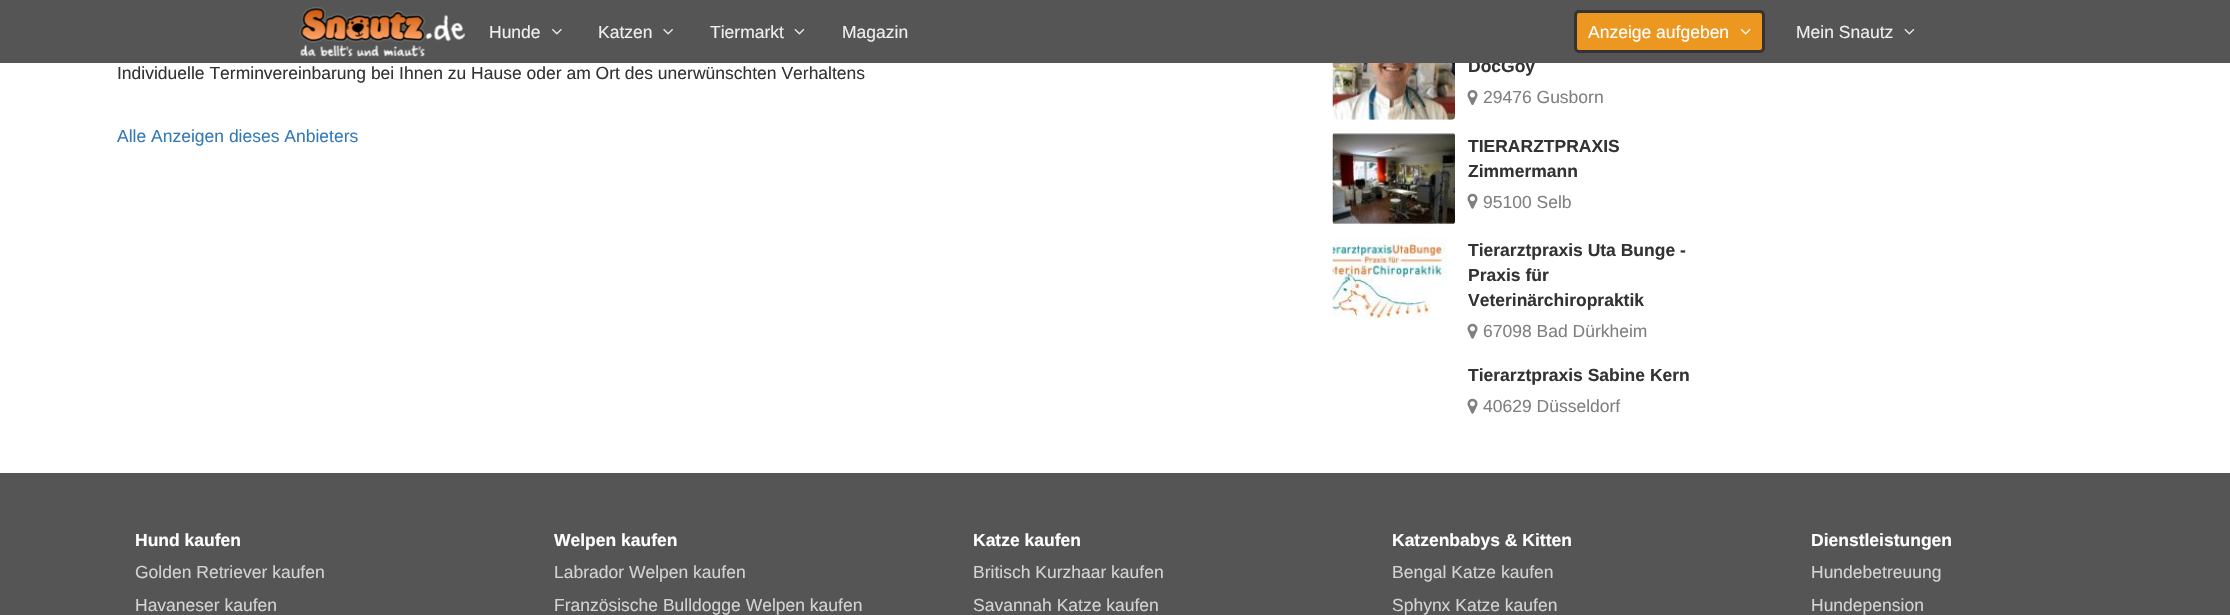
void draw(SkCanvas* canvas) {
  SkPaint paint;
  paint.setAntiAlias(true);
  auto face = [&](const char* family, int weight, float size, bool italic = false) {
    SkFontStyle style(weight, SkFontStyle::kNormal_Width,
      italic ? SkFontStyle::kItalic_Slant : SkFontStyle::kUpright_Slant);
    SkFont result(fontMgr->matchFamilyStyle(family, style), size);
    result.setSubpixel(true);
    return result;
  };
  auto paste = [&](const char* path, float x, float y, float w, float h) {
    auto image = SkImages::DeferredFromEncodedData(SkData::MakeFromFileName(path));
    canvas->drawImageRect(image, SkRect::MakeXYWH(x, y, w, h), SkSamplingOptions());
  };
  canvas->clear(0xffffffff);
  paste("img/6.png", 1332, 63, 123, 57);
  paste("img/7.png", 1467, 90, 11, 15);
  paste("img/8.png", 1332, 133, 123, 92);
  paste("img/9.png", 1467, 193, 11, 16);
  paste("img/10.png", 1332, 237, 115, 82);
  paste("img/9.png", 1467, 323, 11, 16);
  paste("img/9.png", 1467, 398, 11, 16);
  paint.setColor(0xff555555);
  canvas->drawRect(SkRect::MakeXYWH(0, 473, 2230, 142), paint);
  auto f0 = face("Liberation Sans", 400, 17.5f);
  paint.setColor(0xff333333);
  canvas->drawString("Individuelle Terminvereinbarung bei Ihnen zu Hause oder am Ort des unerwünschten Verhaltens", 117, 79, f0, paint);
  paint.setColor(0xff337ab7);
  canvas->drawString("Alle Anzeigen dieses Anbieters", 117, 142, f0, paint);
  auto f1 = face("Liberation Sans", 700, 17.5f);
  paint.setColor(0xff333333);
  canvas->drawString("DocGoy", 1468, 72, f1, paint);
  paint.setColor(0xff555555);
  canvas->drawRect(SkRect::MakeXYWH(0, 0, 2230, 63), paint);
  paste("img/1.png", 299, 7, 166, 50);
  paste("img/4.png", 1904, 28, 11, 7);
  paint.setColor(0xffeeeeee);
  canvas->drawString("Mein Snautz", 1796, 38, f0, paint);
  paint.setColor(0xffec971f);
  canvas->drawRoundRect(SkRect::MakeXYWH(1575.5f, 11.5f, 188, 40), 3.5f, 3.5f, paint);
  paint.setStroke(true);
  paint.setStrokeWidth(3);
  paint.setColor(0xff333333);
  canvas->drawRoundRect(SkRect::MakeXYWH(1575.5f, 11.5f, 188, 40), 3.5f, 3.5f, paint);
  paste("img/5.png", 1740, 28, 11, 7);
  paint.setStroke(false);
  paint.setColor(0xffffffff);
  canvas->drawString("Anzeige aufgeben", 1588, 38, f0, paint);
  paint.setColor(0xffeeeeee);
  canvas->drawString("Magazin", 842, 38, f0, paint);
  paste("img/4.png", 794, 28, 11, 7);
  canvas->drawString("Tiermarkt", 710, 38, f0, paint);
  paste("img/3.png", 663, 28, 10, 7);
  canvas->drawString("Katzen", 598, 38, f0, paint);
  paste("img/2.png", 552, 28, 10, 7);
  canvas->drawString("Hunde", 489, 38, f0, paint);
  paint.setColor(0xff808080);
  canvas->drawString("29476 Gusborn", 1483, 103, f0, paint);
  paint.setColor(0xff333333);
  canvas->drawString("TIERARZTPRAXIS", 1468, 152, f1, paint);
  canvas->drawString("Zimmermann", 1468, 177, f1, paint);
  paint.setColor(0xff808080);
  canvas->drawString("95100 Selb", 1483, 208, f0, paint);
  paint.setColor(0xff333333);
  {
    const struct { const char* s; float x, y; } items[] = {
      {"Tierarztpraxis Uta Bunge -", 1468, 256},
      {"Praxis für", 1468, 281},
      {"Veterinärchiropraktik", 1468, 306},
    };
    for (auto [s, x, y] : items) {
      canvas->drawString(s, x, y, f1, paint);
    }
  }
  paint.setColor(0xff808080);
  canvas->drawString("67098 Bad Dürkheim", 1483, 337, f0, paint);
  paint.setColor(0xff333333);
  canvas->drawString("Tierarztpraxis Sabine Kern", 1468, 381, f1, paint);
  paint.setColor(0xff808080);
  canvas->drawString("40629 Düsseldorf", 1483, 412, f0, paint);
  paint.setColor(0xffffffff);
  canvas->drawString("Hund kaufen", 135, 546, f1, paint);
  paint.setColor(0xffd3d3d3);
  canvas->drawString("Golden Retriever kaufen", 135, 578, f0, paint);
  canvas->drawString("Havaneser kaufen", 135, 611, f0, paint);
  paint.setColor(0xffffffff);
  canvas->drawString("Welpen kaufen", 554, 546, f1, paint);
  paint.setColor(0xffd3d3d3);
  canvas->drawString("Labrador Welpen kaufen", 554, 578, f0, paint);
  canvas->drawString("Französische Bulldogge Welpen kaufen", 554, 611, f0, paint);
  paint.setColor(0xffffffff);
  canvas->drawString("Katze kaufen", 973, 546, f1, paint);
  paint.setColor(0xffd3d3d3);
  canvas->drawString("Britisch Kurzhaar kaufen", 973, 578, f0, paint);
  canvas->drawString("Savannah Katze kaufen", 973, 611, f0, paint);
  paint.setColor(0xffffffff);
  canvas->drawString("Katzenbabys & Kitten", 1392, 546, f1, paint);
  paint.setColor(0xffd3d3d3);
  canvas->drawString("Bengal Katze kaufen", 1392, 578, f0, paint);
  canvas->drawString("Sphynx Katze kaufen", 1392, 611, f0, paint);
  paint.setColor(0xffffffff);
  canvas->drawString("Dienstleistungen", 1811, 546, f1, paint);
  paint.setColor(0xffd3d3d3);
  canvas->drawString("Hundebetreuung", 1811, 578, f0, paint);
  canvas->drawString("Hundepension", 1811, 611, f0, paint);
}
